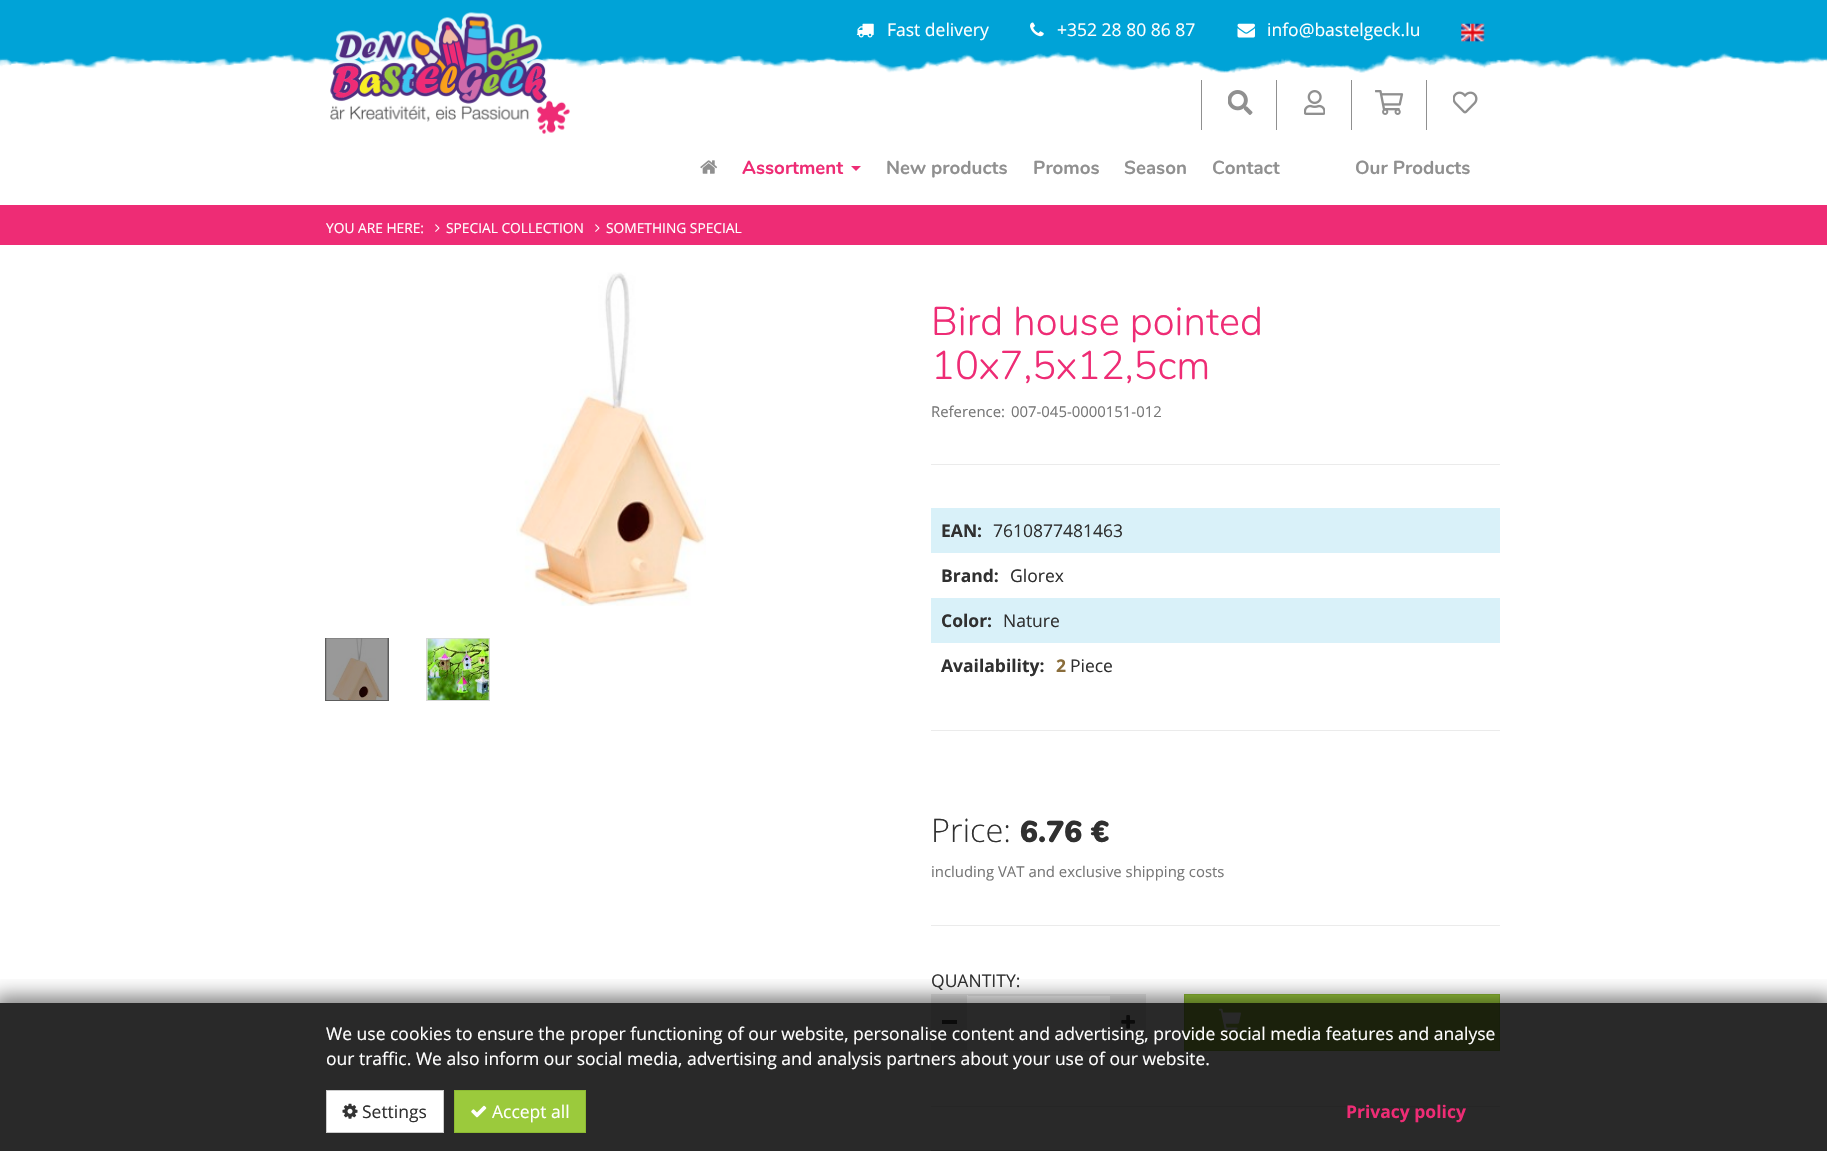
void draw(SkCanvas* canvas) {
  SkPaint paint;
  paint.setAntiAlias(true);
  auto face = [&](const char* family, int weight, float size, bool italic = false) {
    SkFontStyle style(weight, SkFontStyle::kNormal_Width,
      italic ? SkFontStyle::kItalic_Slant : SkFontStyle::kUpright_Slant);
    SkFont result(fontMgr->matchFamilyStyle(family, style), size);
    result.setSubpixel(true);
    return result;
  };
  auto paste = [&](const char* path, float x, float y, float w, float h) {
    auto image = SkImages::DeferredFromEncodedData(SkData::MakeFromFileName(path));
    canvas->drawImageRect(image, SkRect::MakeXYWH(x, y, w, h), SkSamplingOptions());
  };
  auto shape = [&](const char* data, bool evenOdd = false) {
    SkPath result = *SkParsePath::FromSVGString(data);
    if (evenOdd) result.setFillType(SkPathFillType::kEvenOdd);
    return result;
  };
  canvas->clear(0xffffffff);
  paint.setColor(0xffee2c75);
  canvas->drawRect(SkRect::MakeXYWH(0, 205, 1827, 40), paint);
  paste("img/1.png", 0, 48, 1827, 25);
  paint.setColor(0xff00a3d7);
  canvas->drawRect(SkRect::MakeXYWH(0, 0, 1827, 48), paint);
  paste("img/2.png", 330, 12, 240, 122);
  paste("img/3.png", 856, 23, 18, 15);
  paste("img/4.png", 1030, 22, 14, 15);
  paste("img/5.png", 1237, 23, 18, 15);
  paste("img/6.png", 1461, 23, 24, 19);
  paint.setColor(0xff909090);
  canvas->drawRect(SkRect::MakeXYWH(1201, 80, 1, 50), paint);
  paste("img/7.png", 1228, 90, 25, 25);
  canvas->drawRect(SkRect::MakeXYWH(1276, 80, 1, 50), paint);
  paste("img/8.png", 1304, 90, 21, 25);
  canvas->drawRect(SkRect::MakeXYWH(1351, 80, 1, 50), paint);
  paste("img/9.png", 1375, 90, 29, 25);
  canvas->drawRect(SkRect::MakeXYWH(1426, 80, 1, 50), paint);
  paste("img/10.png", 1453, 91, 25, 23);
  paste("img/11.png", 700, 160, 18, 14);
  paint.setColor(0xffee2c75);
  canvas->drawPath(shape("M851 166H861L856 171Z"), paint);
  paste("img/12.png", 435, 224, 5, 8);
  paste("img/12.png", 595, 224, 5, 8);
  paste("img/13.png", 516, 272, 190, 334);
  paint.setColor(0xff5c5c5c);
  canvas->drawRect(SkRect::MakeXYWH(325.5f, 638.5f, 63, 62), paint);
  paint.setStroke(true);
  paint.setStrokeWidth(1);
  canvas->drawRect(SkRect::MakeXYWH(325.5f, 638.5f, 63, 62), paint);
  paste("img/14.png", 326, 638, 62, 62);
  paint.setColor(0xffd8d8d8);
  canvas->drawRect(SkRect::MakeXYWH(426.5f, 638.5f, 63, 62), paint);
  paste("img/15.png", 427, 638, 62, 62);
  paint.setStroke(false);
  {
    const struct { float x, y, w, h; SkColor color; } items[] = {
      {931, 464, 569, 1, 0xffebebeb},
      {931, 508, 569, 45, 0xffd9f1f9},
      {931, 598, 569, 45, 0xffd9f1f9},
      {931, 730, 569, 1, 0xffebebeb},
      {931, 925, 569, 1, 0xffebebeb},
      {931, 994, 35, 57, 0xffebebeb},
      {942, 1020, 15, 4, 0xff303030},
      {968, 995, 142, 1, 0xffececec},
    };
    for (auto [x, y, w, h, color] : items) {
      paint.setColor(color);
      canvas->drawRect(SkRect::MakeXYWH(x, y, w, h), paint);
    }
  }
  paint.setStroke(true);
  paint.setColor(0xffebebeb);
  canvas->drawRect(SkRect::MakeXYWH(966.5f, 994.5f, 144, 56), paint);
  paint.setStroke(false);
  canvas->drawRect(SkRect::MakeXYWH(1111, 994, 35, 57), paint);
  paste("img/16.png", 1121, 1015, 14, 14);
  paint.setColor(0xff9bca3c);
  canvas->drawRect(SkRect::MakeXYWH(1184.5f, 994.5f, 315, 56), paint);
  paint.setStroke(true);
  paint.setColor(0xff8dba33);
  canvas->drawRect(SkRect::MakeXYWH(1184.5f, 994.5f, 315, 56), paint);
  paste("img/17.png", 1218, 1008, 23, 24);
  paint.setStroke(false);
  paint.setColor(0xffebebeb);
  canvas->drawRect(SkRect::MakeXYWH(931, 1106, 569, 1), paint);
  paint.setStroke(true);
  paint.setColor(0xffcccccc);
  canvas->drawRect(SkRect::MakeXYWH(931.5f, 1150.5f, 138, 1), paint);
  canvas->drawRect(SkRect::MakeXYWH(1399.5f, 1150.5f, 100, 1), paint);
  canvas->save();
  canvas->clipRect(SkRect::MakeXYWH(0, 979, 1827, 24));
  paint.setStroke(false);
  paint.setColor(0x80000000);
  paint.setMaskFilter(SkMaskFilter::MakeBlur(kNormal_SkBlurStyle, 9.5f));
  canvas->drawRect(SkRect::MakeXYWH(-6, 996, 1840, 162), paint);
  paint.setMaskFilter(nullptr);
  canvas->restore();
  paint.setColor(0xd9030303);
  canvas->drawRect(SkRect::MakeXYWH(0, 1003, 1827, 148), paint);
  paint.setColor(0xffffffff);
  canvas->drawRect(SkRect::MakeXYWH(326.5f, 1090.5f, 117, 42), paint);
  paint.setStroke(true);
  paint.setColor(0xffcccccc);
  canvas->drawRect(SkRect::MakeXYWH(326.5f, 1090.5f, 117, 42), paint);
  paste("img/18.png", 342, 1103, 16, 16);
  paint.setStroke(false);
  paint.setColor(0xff9bca3c);
  canvas->drawRect(SkRect::MakeXYWH(454.5f, 1090.5f, 131, 42), paint);
  paint.setStroke(true);
  paint.setColor(0xff8dba33);
  canvas->drawRect(SkRect::MakeXYWH(454.5f, 1090.5f, 131, 42), paint);
  paste("img/19.png", 471, 1105, 16, 13);
  auto f0 = face("Open Sans", 400, 17.5f);
  paint.setStroke(false);
  paint.setColor(0xffffffff);
  {
    const struct { const char* s; float x, y; } items[] = {
      {"Fast delivery", 887, 36},
      {"+352 28 80 86 87", 1057, 36},
      {"info@bastelgeck.lu", 1267, 36},
    };
    for (auto [s, x, y] : items) {
      canvas->drawString(s, x, y, f0, paint);
    }
  }
  auto f1 = face("Nunito", 700, 18.75f);
  paint.setColor(0xffee2c75);
  canvas->drawString("Assortment", 742, 174, f1, paint);
  paint.setColor(0xff909090);
  {
    const struct { const char* s; float x, y; } items[] = {
      {"New products", 886, 174},
      {"Promos", 1033, 174},
      {"Season", 1124, 174},
      {"Contact", 1212, 174},
      {"Our Products", 1355, 174},
    };
    for (auto [s, x, y] : items) {
      canvas->drawString(s, x, y, f1, paint);
    }
  }
  auto f2 = face("Open Sans", 400, 13.75f);
  paint.setColor(0xffffffff);
  {
    const struct { const char* s; float x, y; } items[] = {
      {"YOU ARE HERE:", 326, 233},
      {"SPECIAL COLLECTION", 446, 233},
      {"SOMETHING SPECIAL", 606, 233},
    };
    for (auto [s, x, y] : items) {
      canvas->drawString(s, x, y, f2, paint);
    }
  }
  auto f3 = face("Nunito", 300, 40);
  paint.setColor(0xffee2c75);
  canvas->drawString("Bird house pointed", 931, 335, f3, paint);
  canvas->drawString("10x7,5x12,5cm", 931, 379, f3, paint);
  auto f4 = face("Open Sans", 400, 14.9f);
  paint.setColor(0xff777777);
  canvas->drawString("Reference:", 931, 417, f4, paint);
  canvas->drawString("007-045-0000151-012", 1011, 417, f4, paint);
  auto f5 = face("Open Sans", 700, 17.5f);
  paint.setColor(0xff303030);
  canvas->drawString("EAN:", 941, 537, f5, paint);
  canvas->drawString("7610877481463", 993, 537, f0, paint);
  canvas->drawString("Brand:", 941, 582, f5, paint);
  canvas->drawString("Glorex", 1010, 582, f0, paint);
  canvas->drawString("Color:", 941, 627, f5, paint);
  canvas->drawString("Nature", 1003, 627, f0, paint);
  canvas->drawString("Availability:", 941, 672, f5, paint);
  paint.setColor(0xff8a6d3b);
  canvas->drawString("2", 1056, 672, f5, paint);
  paint.setColor(0xff303030);
  canvas->drawString("Piece", 1070, 672, f0, paint);
  auto f6 = face("Open Sans", 300, 32.5f);
  canvas->drawString("Price:", 931, 842, f6, paint);
  auto f7 = face("Nunito", 900, 30);
  canvas->drawString("6.76 €", 1020, 842, f7, paint);
  paint.setColor(0xff777777);
  canvas->drawString("including VAT and exclusive shipping costs", 931, 877, f4, paint);
  paint.setColor(0xff303030);
  canvas->drawString("QUANTITY:", 931, 987, f0, paint);
  paint.setColor(0xffffffff);
  canvas->drawString("We use cookies to ensure the proper functioning of our website, personalise content and advertising, provide social media features and analyse", 326, 1040, f0, paint);
  canvas->drawString("our traffic. We also inform our social media, advertising and analysis partners about your use of our website.", 326, 1065, f0, paint);
  paint.setColor(0xff303030);
  canvas->drawString("Settings", 362, 1118, f0, paint);
  paint.setColor(0xffffffff);
  canvas->drawString("Accept all", 492, 1118, f0, paint);
  paint.setColor(0xffee2c75);
  canvas->drawString("Privacy policy", 1346, 1118, f5, paint);
}
